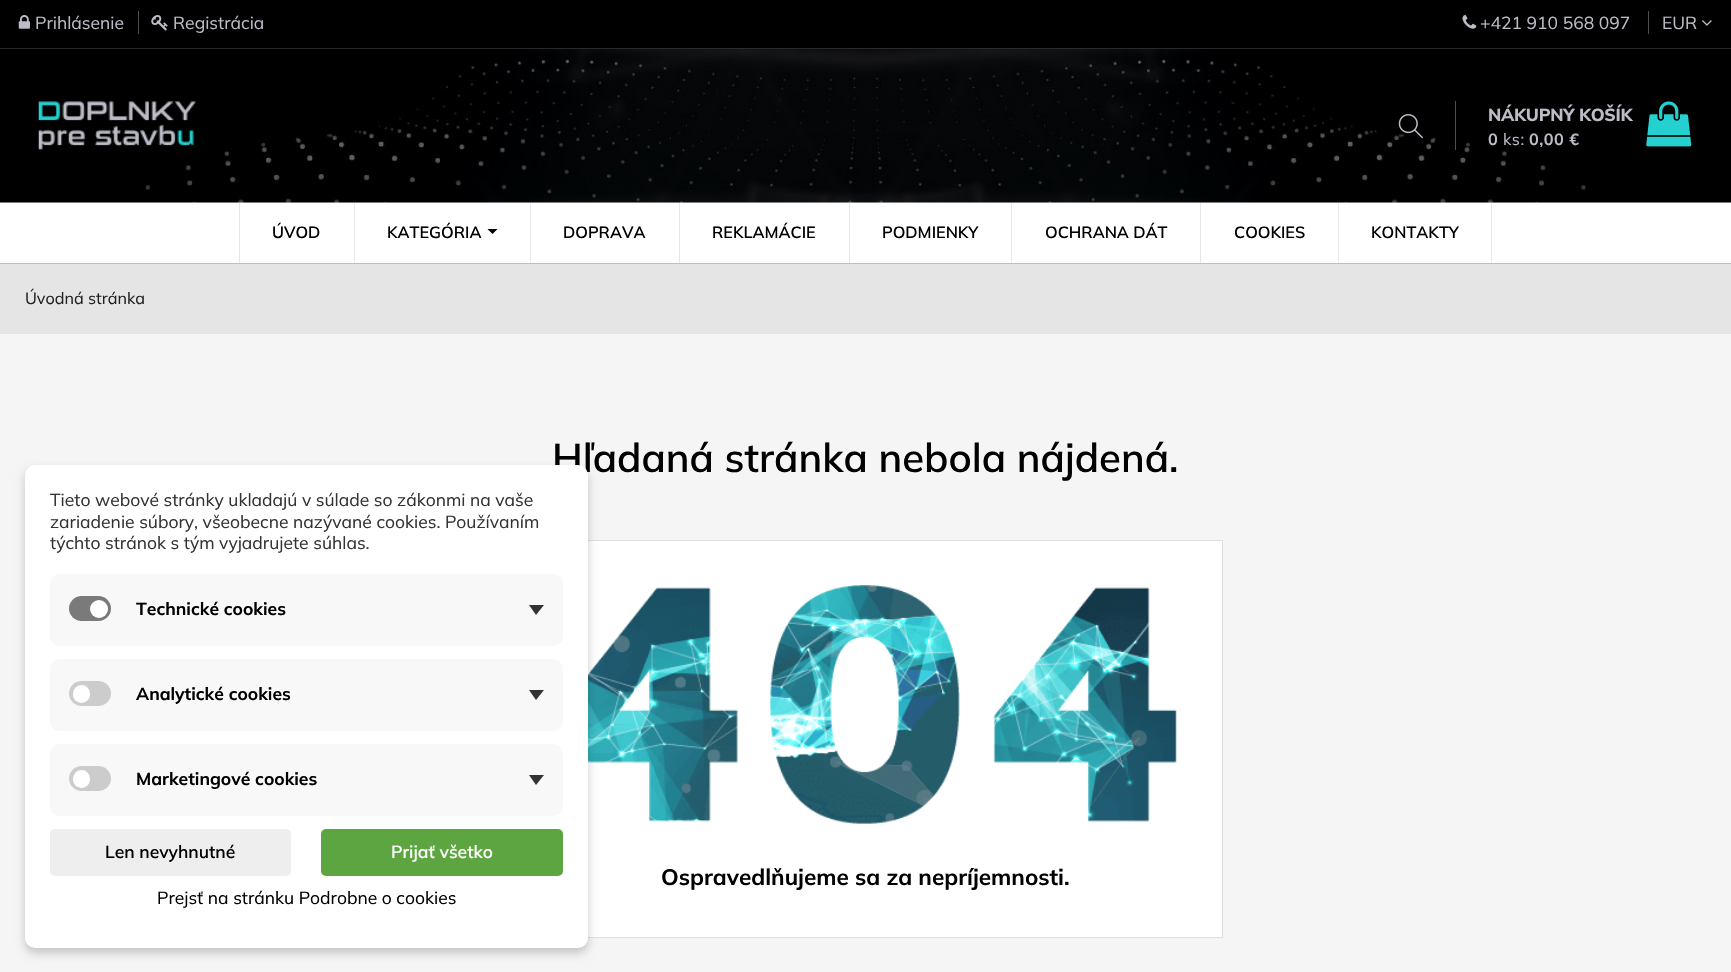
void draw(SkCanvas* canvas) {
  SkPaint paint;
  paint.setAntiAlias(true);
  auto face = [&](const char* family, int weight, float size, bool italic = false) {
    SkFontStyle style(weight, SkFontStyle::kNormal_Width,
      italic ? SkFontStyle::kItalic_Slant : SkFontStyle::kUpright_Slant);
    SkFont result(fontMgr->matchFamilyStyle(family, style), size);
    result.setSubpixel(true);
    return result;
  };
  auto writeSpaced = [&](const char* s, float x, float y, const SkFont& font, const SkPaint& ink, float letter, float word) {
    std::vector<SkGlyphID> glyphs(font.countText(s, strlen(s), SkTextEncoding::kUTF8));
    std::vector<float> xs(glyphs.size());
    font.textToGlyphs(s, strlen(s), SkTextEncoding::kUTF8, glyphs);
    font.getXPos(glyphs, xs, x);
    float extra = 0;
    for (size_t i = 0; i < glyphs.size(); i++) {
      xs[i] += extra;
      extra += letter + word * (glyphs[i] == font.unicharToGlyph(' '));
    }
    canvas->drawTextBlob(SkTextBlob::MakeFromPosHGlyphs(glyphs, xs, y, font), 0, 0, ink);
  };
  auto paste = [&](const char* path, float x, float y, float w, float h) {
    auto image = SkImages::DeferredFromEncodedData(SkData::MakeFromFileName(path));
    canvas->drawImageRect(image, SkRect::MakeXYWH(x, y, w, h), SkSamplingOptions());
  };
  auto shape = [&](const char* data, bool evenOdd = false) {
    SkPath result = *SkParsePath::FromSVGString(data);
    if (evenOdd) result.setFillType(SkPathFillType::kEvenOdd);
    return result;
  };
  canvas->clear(0xfff5f5f5);
  {
    const struct { float x, y, w, h; SkColor color; } items[] = {
      {0, 0, 1731, 48, 0xff000000},
      {0, 48, 1731, 1, 0xff333333},
      {138, 11, 1, 23, 0xff4d4d4d},
    };
    for (auto [x, y, w, h, color] : items) {
      paint.setColor(color);
      canvas->drawRect(SkRect::MakeXYWH(x, y, w, h), paint);
    }
  }
  paste("img/1.png", 18, 15, 12, 14);
  paste("img/2.png", 151, 15, 17, 16);
  paste("img/3.png", 1462, 15, 15, 14);
  canvas->drawRect(SkRect::MakeXYWH(1648, 11, 1, 23), paint);
  paste("img/4.png", 1702, 20, 10, 6);
  paste("img/5.png", 0, 48, 1731, 155);
  paste("img/6.png", 38, 101, 159, 49);
  paste("img/7.png", 1398, 114, 26, 25);
  canvas->drawRect(SkRect::MakeXYWH(1455, 101, 1, 49), paint);
  paste("img/8.png", 1646, 101, 46, 46);
  {
    const struct { float x, y, w, h; SkColor color; } items[] = {
      {0, 203, 1731, 60, 0xffffffff},
      {0, 263, 1731, 1, 0xffbcbdc7},
      {354, 203, 1, 60, 0xffe7e7e7},
      {239, 203, 1, 60, 0xffe7e7e7},
      {530, 203, 1, 60, 0xffe7e7e7},
    };
    for (auto [x, y, w, h, color] : items) {
      paint.setColor(color);
      canvas->drawRect(SkRect::MakeXYWH(x, y, w, h), paint);
    }
  }
  paint.setColor(0xff000000);
  canvas->drawPath(shape("M487.5 229H497.5L492.5 234Z"), paint);
  {
    const struct { float x, y, w, h; SkColor color; } items[] = {
      {679, 203, 1, 60, 0xffe7e7e7},
      {849, 203, 1, 60, 0xffe7e7e7},
      {1011, 203, 1, 60, 0xffe7e7e7},
      {1200, 203, 1, 60, 0xffe7e7e7},
      {1338, 203, 1, 60, 0xffe7e7e7},
      {1491, 203, 1, 60, 0xffe7e7e7},
      {0, 264, 1731, 70, 0xffe5e5e5},
      {588, 541, 634, 396, 0xffffffff},
    };
    for (auto [x, y, w, h, color] : items) {
      paint.setColor(color);
      canvas->drawRect(SkRect::MakeXYWH(x, y, w, h), paint);
    }
  }
  paint.setStroke(true);
  paint.setStrokeWidth(1);
  paint.setColor(0xffdfdfdf);
  canvas->drawRect(SkRect::MakeXYWH(510.5f, 540.5f, 712, 397), paint);
  paste("img/9.png", 588, 585, 589, 239);
  paint.setStroke(false);
  paint.setColor(0x33000000);
  paint.setMaskFilter(SkMaskFilter::MakeBlur(kNormal_SkBlurStyle, 5));
  canvas->drawRoundRect(SkRect::MakeXYWH(25, 470, 563, 483), 10, 10, paint);
  paint.setMaskFilter(nullptr);
  auto f0 = face("Mulish", 400, 17.5f);
  paint.setColor(0xffbcbdc7);
  {
    const struct { const char* s; float x, y; } items[] = {
      {"Prihlásenie", 35, 29},
      {"Registrácia", 173, 29},
      {"+421 910 568 097", 1480, 29},
      {"EUR", 1662, 29},
    };
    for (auto [s, x, y] : items) {
      canvas->drawString(s, x, y, f0, paint);
    }
  }
  auto f1 = face("Mulish", 800, 17.5f);
  writeSpaced("NÁKUPNÝ KOŠÍK", 1488, 121, f1, paint, -0.25f, 0);
  auto f2 = face("Mulish", 700, 16.25f);
  writeSpaced("0", 1488, 145, f2, paint, 0.5f, 0);
  auto f3 = face("Mulish", 400, 16.25f);
  writeSpaced("ks:", 1503, 145, f3, paint, 0.5f, 0);
  writeSpaced("0,00 €", 1529, 145, f2, paint, 0.5f, 0);
  auto f4 = face("Mulish", 600, 16.25f);
  paint.setColor(0xff000000);
  {
    const struct { const char* s; float x, y; } items[] = {
      {"ÚVOD", 272, 238},
      {"KATEGÓRIA", 387, 238},
      {"DOPRAVA", 563, 238},
      {"REKLAMÁCIE", 712, 238},
      {"PODMIENKY", 882, 238},
      {"OCHRANA DÁT", 1045, 238},
      {"COOKIES", 1234, 238},
      {"KONTAKTY", 1371, 238},
    };
    for (auto [s, x, y] : items) {
      canvas->drawString(s, x, y, f4, paint);
    }
  }
  paint.setColor(0xff222222);
  canvas->drawString("Úvodná stránka", 25, 304, f3, paint);
  auto f5 = face("Mulish", 600, 40);
  paint.setColor(0xff000000);
  canvas->drawString("Hľadaná stránka nebola nájdená.", 552, 472, f5, paint);
  auto f6 = face("Mulish", 700, 22.5f);
  canvas->drawString("Ospravedlňujeme sa za nepríjemnosti.", 661, 885, f6, paint);
  paint.setColor(0xffffffff);
  canvas->drawRoundRect(SkRect::MakeXYWH(25, 465, 563, 483), 10, 10, paint);
  paint.setColor(0xff333333);
  {
    const struct { const char* s; float x, y; } items[] = {
      {"Tieto webové stránky ukladajú v súlade so zákonmi na vaše", 50, 506},
      {"zariadenie súbory, všeobecne nazývané cookies. Používaním", 50, 528},
      {"týchto stránok s tým vyjadrujete súhlas.", 50, 549},
    };
    for (auto [s, x, y] : items) {
      canvas->drawString(s, x, y, f0, paint);
    }
  }
  paint.setColor(0xfff8f8f8);
  canvas->drawRoundRect(SkRect::MakeXYWH(50, 574, 513, 72), 10, 10, paint);
  paint.setColor(0xff7a7a7a);
  canvas->drawRoundRect(SkRect::MakeXYWH(69, 596, 42, 25), 12.5f, 12.5f, paint);
  paint.setColor(0xffffffff);
  canvas->drawCircle(99, 609, 9, paint);
  auto f7 = face("Mulish", 700, 17.5f);
  paint.setColor(0xff000000);
  canvas->drawString("Technické cookies", 136, 615, f7, paint);
  paint.setColor(0xff333333);
  canvas->drawPath(shape("M529 605H544L536 615Z"), paint);
  paint.setColor(0xfff8f8f8);
  canvas->drawRoundRect(SkRect::MakeXYWH(50, 659, 513, 72), 10, 10, paint);
  paint.setColor(0xffcccccc);
  canvas->drawRoundRect(SkRect::MakeXYWH(69, 681, 42, 25), 12.5f, 12.5f, paint);
  paint.setColor(0xffffffff);
  canvas->drawRoundRect(SkRect::MakeXYWH(73, 685, 17, 18), 8.5f, 8.5f, paint);
  paint.setColor(0xff000000);
  canvas->drawString("Analytické cookies", 136, 700, f7, paint);
  paint.setColor(0xff333333);
  canvas->drawPath(shape("M529 690H544L536 700Z"), paint);
  paint.setColor(0xfff8f8f8);
  canvas->drawRoundRect(SkRect::MakeXYWH(50, 744, 513, 72), 10, 10, paint);
  paint.setColor(0xffcccccc);
  canvas->drawRoundRect(SkRect::MakeXYWH(69, 766, 42, 25), 12.5f, 12.5f, paint);
  paint.setColor(0xffffffff);
  canvas->drawRoundRect(SkRect::MakeXYWH(73, 770, 17, 18), 8.5f, 8.5f, paint);
  paint.setColor(0xff000000);
  canvas->drawString("Marketingové cookies", 136, 785, f7, paint);
  paint.setColor(0xff333333);
  canvas->drawPath(shape("M529 775H544L536 785Z"), paint);
  paint.setColor(0xffeeeeee);
  canvas->drawRoundRect(SkRect::MakeXYWH(50, 829, 241, 47), 5, 5, paint);
  auto f8 = face("Mulish", 600, 17.5f);
  paint.setColor(0xff000000);
  canvas->drawString("Len nevyhnutné", 105, 858, f8, paint);
  paint.setColor(0xff5ca541);
  canvas->drawRoundRect(SkRect::MakeXYWH(321, 829, 242, 47), 5, 5, paint);
  paint.setColor(0xffffffff);
  canvas->drawString("Prijať všetko", 391, 858, f8, paint);
  paint.setColor(0xff000000);
  canvas->drawString("Prejsť na stránku Podrobne o cookies", 157, 904, f0, paint);
}
